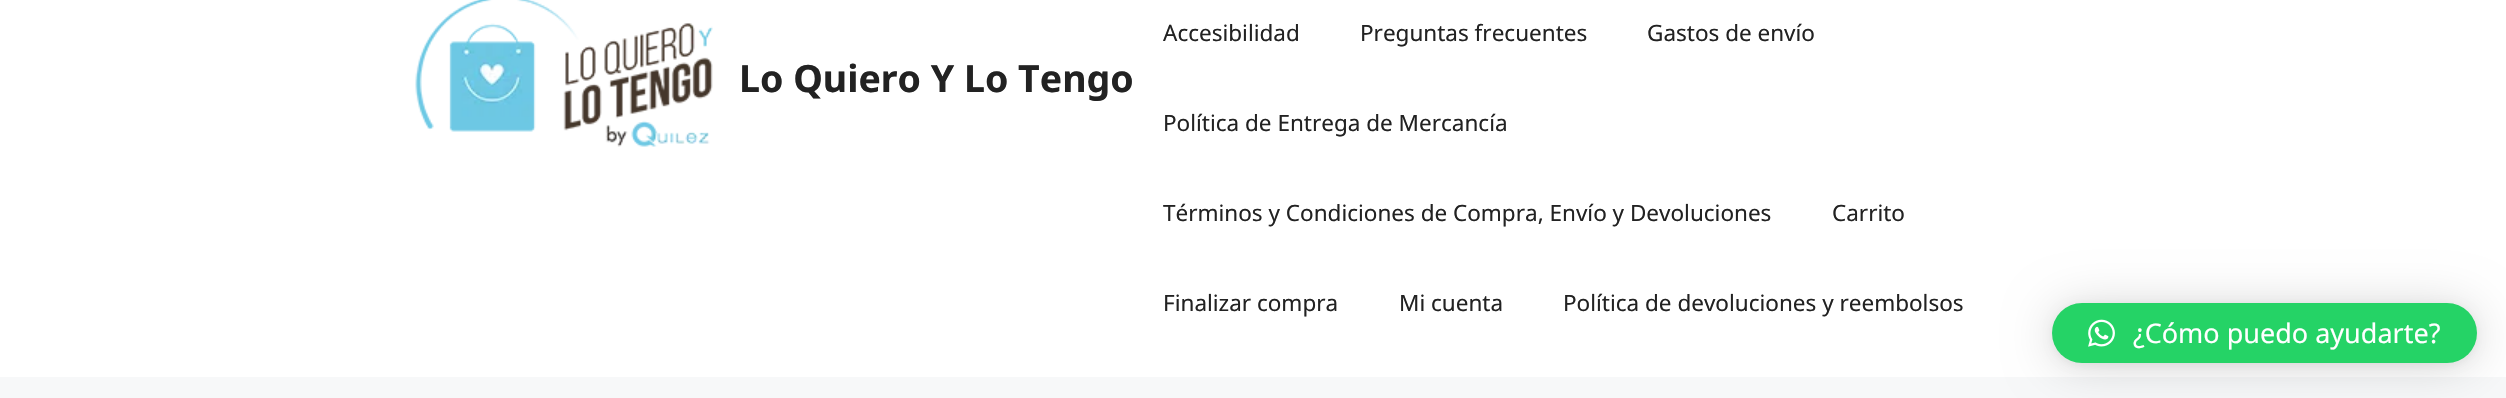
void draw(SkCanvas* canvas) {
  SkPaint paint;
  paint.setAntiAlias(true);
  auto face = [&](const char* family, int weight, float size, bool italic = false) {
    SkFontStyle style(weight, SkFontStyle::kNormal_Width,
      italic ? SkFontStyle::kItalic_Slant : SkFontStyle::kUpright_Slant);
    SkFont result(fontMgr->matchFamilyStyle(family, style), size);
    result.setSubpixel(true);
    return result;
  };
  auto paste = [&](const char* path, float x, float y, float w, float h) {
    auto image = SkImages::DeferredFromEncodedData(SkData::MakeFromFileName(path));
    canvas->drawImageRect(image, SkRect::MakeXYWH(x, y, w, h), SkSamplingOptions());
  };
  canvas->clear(0xfff7f8f9);
  paint.setColor(0xffffffff);
  canvas->drawRect(SkRect::MakeXYWH(0, 0, 2506, 377), paint);
  paste("img/1.png", 415, 0, 298, 147);
  paint.setColor(0x29000000);
  paint.setMaskFilter(SkMaskFilter::MakeBlur(kNormal_SkBlurStyle, 24));
  canvas->drawRoundRect(SkRect::MakeXYWH(2052, 306, 425, 60), 30, 30, paint);
  paint.setMaskFilter(nullptr);
  paint.setColor(0x0f000000);
  paint.setMaskFilter(SkMaskFilter::MakeBlur(kNormal_SkBlurStyle, 4.5f));
  canvas->drawRoundRect(SkRect::MakeXYWH(2052, 305, 425, 60), 30, 30, paint);
  paint.setMaskFilter(nullptr);
  paint.setColor(0xff25d366);
  canvas->drawRoundRect(SkRect::MakeXYWH(2052, 303, 425, 60), 30, 30, paint);
  paste("img/2.png", 2088, 319, 27, 28);
  auto f0 = face("Noto Sans", 700, 37.5f);
  paint.setColor(0xff222222);
  canvas->drawString("Lo Quiero Y Lo Tengo", 739, 92, f0, paint);
  auto f1 = face("Noto Sans", 400, 22.5f);
  {
    const struct { const char* s; float x, y; } items[] = {
      {"Accesibilidad", 1163, 41},
      {"Preguntas frecuentes", 1360, 41},
      {"Gastos de envío", 1647, 41},
      {"Política de Entrega de Mercancía", 1163, 131},
      {"Términos y Condiciones de Compra, Envío y Devoluciones", 1163, 221},
      {"Carrito", 1832, 221},
      {"Finalizar compra", 1163, 311},
      {"Mi cuenta", 1399, 311},
      {"Política de devoluciones y reembolsos", 1563, 311},
    };
    for (auto [s, x, y] : items) {
      canvas->drawString(s, x, y, f1, paint);
    }
  }
  auto f2 = face("Noto Sans", 400, 27);
  paint.setColor(0xffffffff);
  canvas->drawString("¿Cómo puedo ayudarte?", 2133, 343, f2, paint);
}
